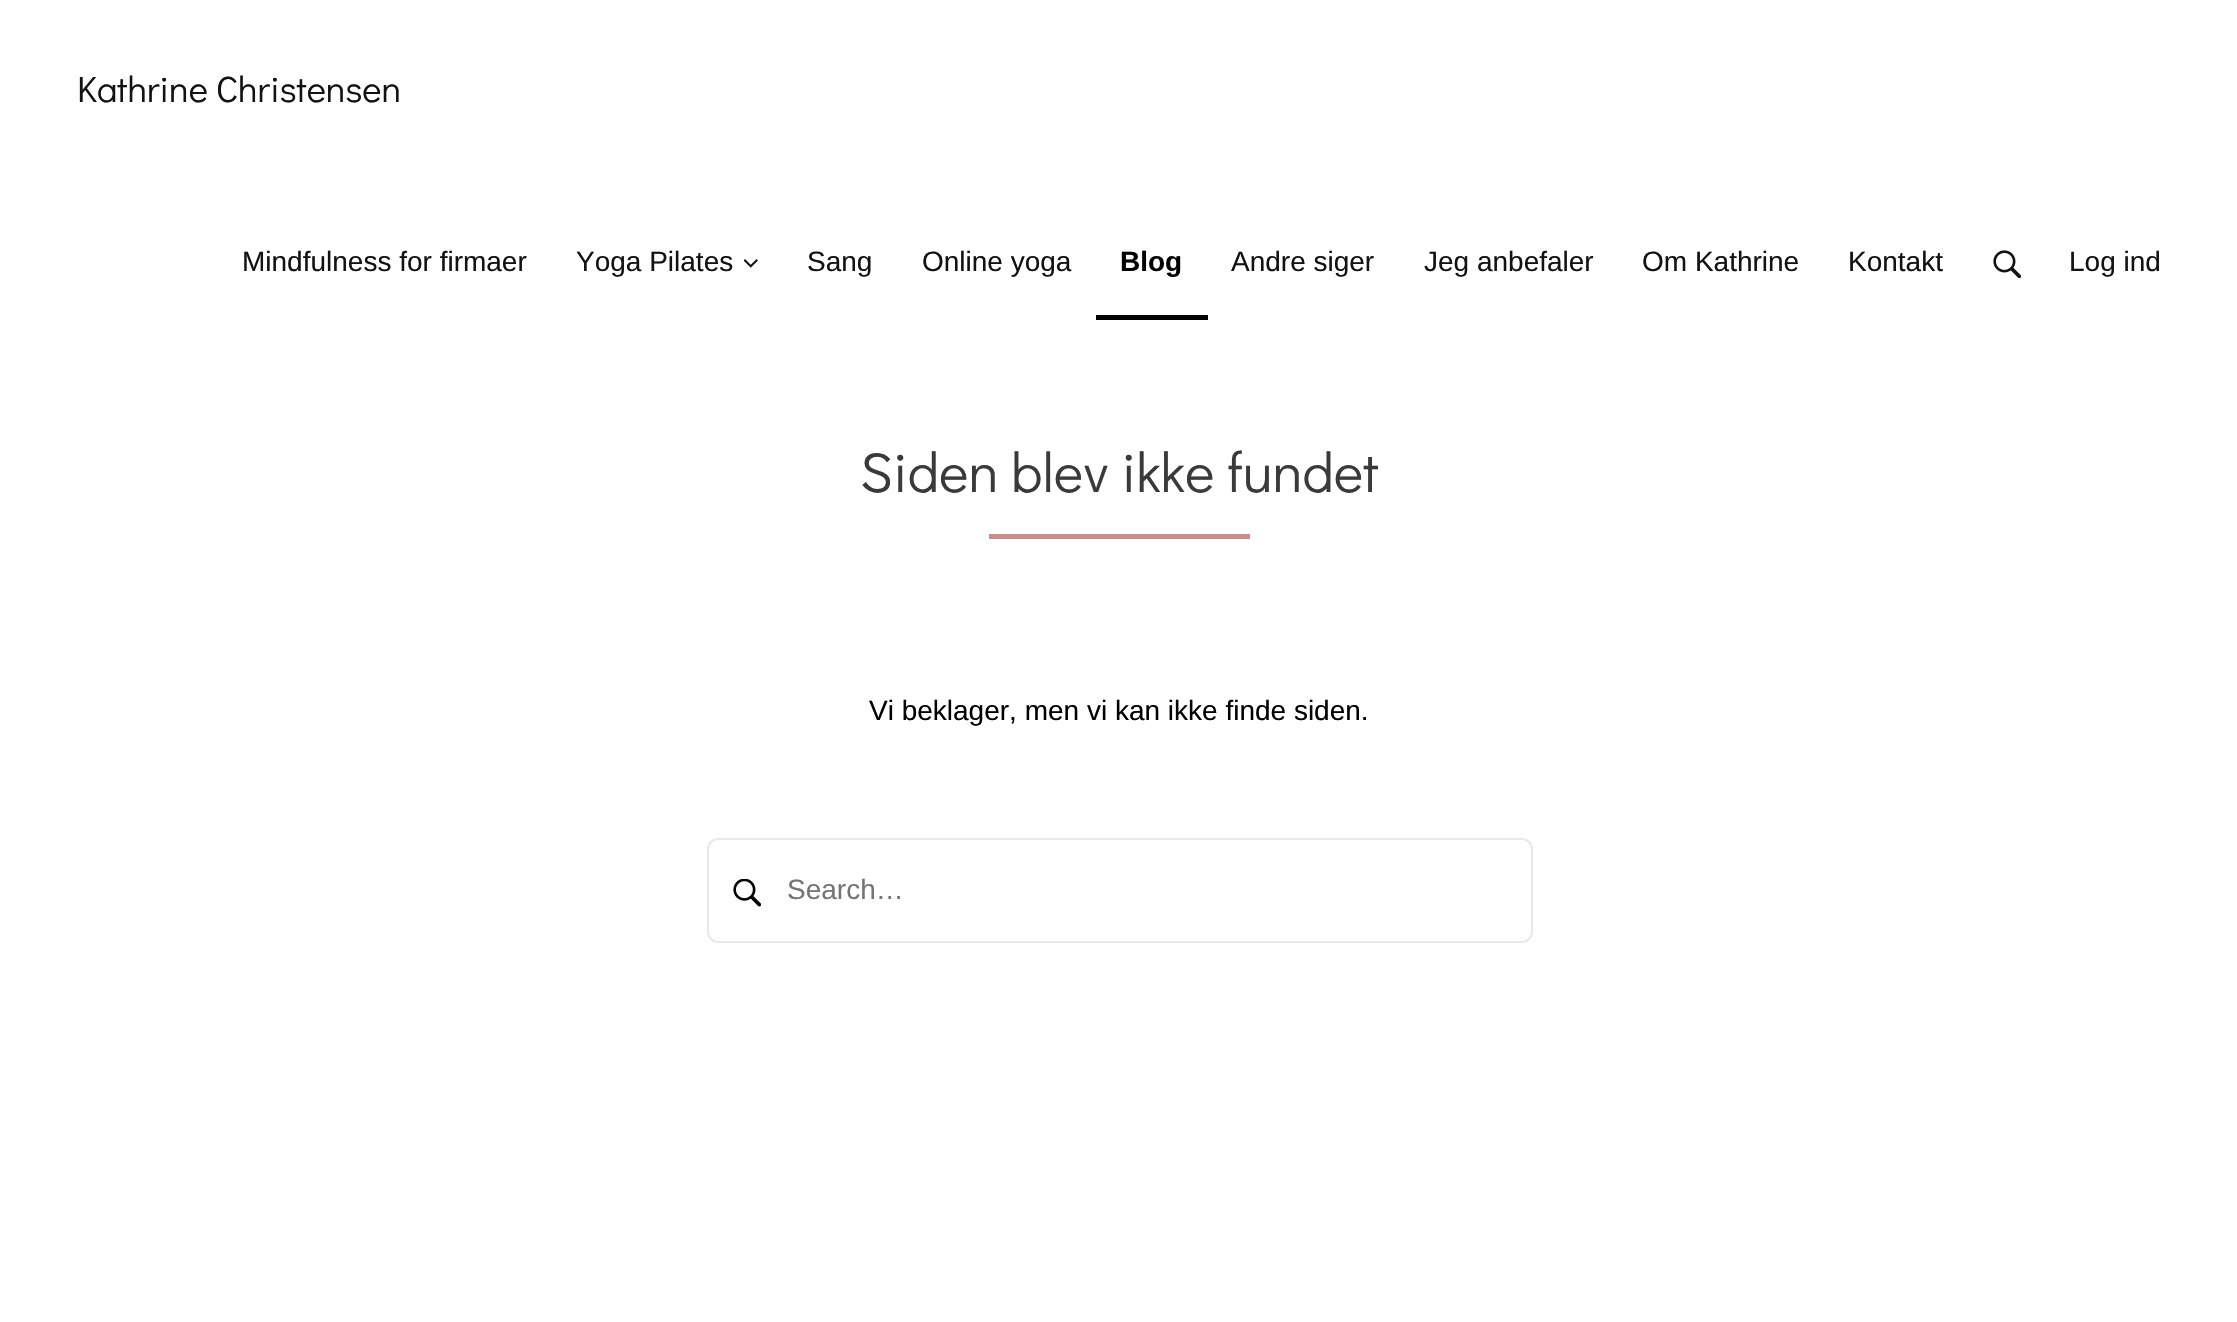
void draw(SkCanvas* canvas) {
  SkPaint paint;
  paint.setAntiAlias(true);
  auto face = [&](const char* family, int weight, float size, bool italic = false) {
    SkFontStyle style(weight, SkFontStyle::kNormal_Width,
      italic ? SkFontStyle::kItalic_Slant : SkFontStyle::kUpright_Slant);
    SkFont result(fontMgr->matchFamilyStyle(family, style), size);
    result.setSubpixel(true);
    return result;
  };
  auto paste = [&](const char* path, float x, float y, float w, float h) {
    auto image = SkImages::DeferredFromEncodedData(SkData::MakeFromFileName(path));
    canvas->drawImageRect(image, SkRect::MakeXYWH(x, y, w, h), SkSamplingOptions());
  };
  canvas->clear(0xffffffff);
  paste("img/1.png", 744, 259, 14, 9);
  paint.setColor(0xff000000);
  canvas->drawRect(SkRect::MakeXYWH(1096, 315, 112, 5), paint);
  paste("img/2.png", 1993, 250, 28, 28);
  paint.setColor(0xffc88e8e);
  canvas->drawRect(SkRect::MakeXYWH(989, 534, 261, 5), paint);
  paint.setStroke(true);
  paint.setStrokeWidth(2);
  paint.setColor(0xffe9e9e9);
  canvas->drawRoundRect(SkRect::MakeXYWH(708, 839, 824, 103), 10, 10, paint);
  paste("img/3.png", 733, 879, 28, 28);
  auto f0 = face("Didact Gothic", 400, 36.5f);
  paint.setStroke(false);
  paint.setColor(0xff121212);
  canvas->drawString("Kathrine Christensen", 77, 102, f0, paint);
  auto f1 = face("Liberation Sans", 400, 28);
  {
    const struct { const char* s; float x, y; } items[] = {
      {"Mindfulness for firmaer", 242, 271},
      {"Yoga Pilates", 576, 271},
      {"Sang", 807, 271},
      {"Online yoga", 922, 271},
    };
    for (auto [s, x, y] : items) {
      canvas->drawString(s, x, y, f1, paint);
    }
  }
  auto f2 = face("Liberation Sans", 700, 28);
  paint.setColor(0xff000000);
  canvas->drawString("Blog", 1120, 271, f2, paint);
  paint.setColor(0xff121212);
  {
    const struct { const char* s; float x, y; } items[] = {
      {"Andre siger", 1231, 271},
      {"Jeg anbefaler", 1424, 271},
      {"Om Kathrine", 1642, 271},
      {"Kontakt", 1848, 271},
      {"Log ind", 2069, 271},
    };
    for (auto [s, x, y] : items) {
      canvas->drawString(s, x, y, f1, paint);
    }
  }
  auto f3 = face("Didact Gothic", 400, 56);
  paint.setColor(0xff3b3a3a);
  canvas->drawString("Siden blev ikke fundet", 860, 492, f3, paint);
  paint.setColor(0xff000000);
  canvas->drawString("Vi beklager, men vi kan ikke finde siden.", 869, 720, f1, paint);
  paint.setColor(0xff757575);
  canvas->drawString("Search…", 787, 899, f1, paint);
}
